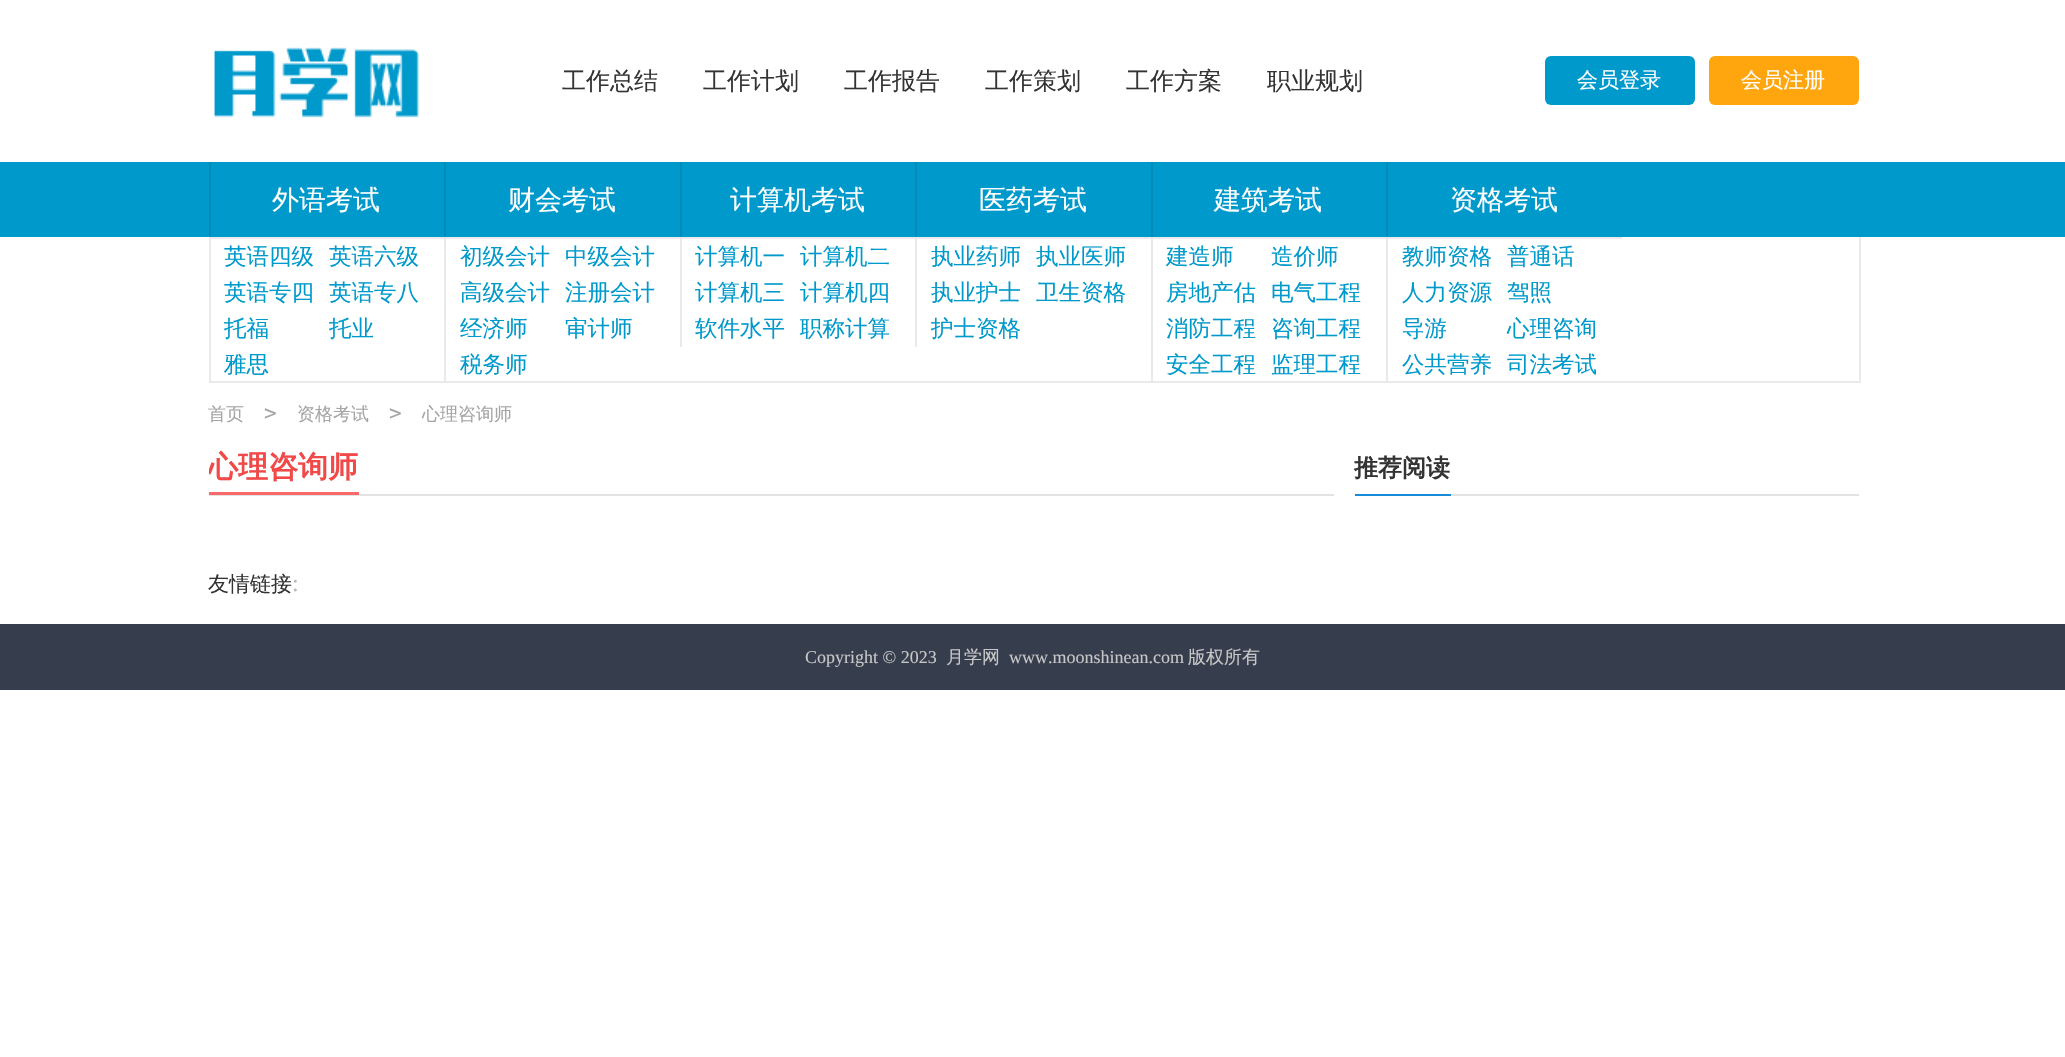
void draw(SkCanvas* canvas) {
  SkPaint paint;
  paint.setAntiAlias(true);
  auto face = [&](const char* family, int weight, float size, bool italic = false) {
    SkFontStyle style(weight, SkFontStyle::kNormal_Width,
      italic ? SkFontStyle::kItalic_Slant : SkFontStyle::kUpright_Slant);
    SkFont result(fontMgr->matchFamilyStyle(family, style), size);
    result.setSubpixel(true);
    return result;
  };
  auto paste = [&](const char* path, float x, float y, float w, float h) {
    auto image = SkImages::DeferredFromEncodedData(SkData::MakeFromFileName(path));
    canvas->drawImageRect(image, SkRect::MakeXYWH(x, y, w, h), SkSamplingOptions());
  };
  canvas->clear(0xffffffff);
  paste("img/1.png", 214, 47, 205, 71);
  paint.setColor(0xff0099cb);
  canvas->drawRoundRect(SkRect::MakeXYWH(1545, 56, 150, 49), 6, 6, paint);
  paint.setColor(0xffffa60f);
  canvas->drawRoundRect(SkRect::MakeXYWH(1709, 56, 150, 49), 6, 6, paint);
  {
    const struct { float x, y, w, h; SkColor color; } items[] = {
      {0, 162, 2065, 75, 0xff0099cb},
      {209, 162, 2, 75, 0xff008bb8},
      {444, 162, 2, 75, 0xff008bb8},
      {680, 162, 2, 75, 0xff008bb8},
      {915, 162, 2, 75, 0xff008bb8},
      {1151, 162, 2, 75, 0xff008bb8},
      {1386, 162, 2, 75, 0xff008bb8},
      {1859, 237, 2, 146, 0xffeaeaea},
      {209, 381, 1651, 2, 0xffeaeaea},
      {209, 237, 1413, 2, 0xffeaeaea},
      {209, 237, 2, 144, 0xffeaeaea},
      {444, 237, 2, 144, 0xffeaeaea},
      {680, 237, 2, 110, 0xffeaeaea},
      {915, 237, 2, 110, 0xffeaeaea},
      {1151, 237, 2, 144, 0xffeaeaea},
      {1386, 237, 2, 144, 0xffeaeaea},
      {209, 494, 1125, 2, 0xffe3e3e3},
      {209, 492, 150, 3, 0xfff96969},
      {1451, 494, 408, 2, 0xffe3e3e3},
      {1355, 494, 96, 2, 0xff188bd8},
      {0, 624, 2065, 66, 0xff363d4d},
    };
    for (auto [x, y, w, h, color] : items) {
      paint.setColor(color);
      canvas->drawRect(SkRect::MakeXYWH(x, y, w, h), paint);
    }
  }
  auto f0 = face("WenQuanYi Zen Hei", 500, 24);
  paint.setColor(0xff333333);
  {
    const struct { const char* s; float x, y; } items[] = {
      {"工作总结", 562, 89},
      {"工作计划", 703, 89},
      {"工作报告", 844, 89},
      {"工作策划", 985, 89},
      {"工作方案", 1126, 89},
      {"职业规划", 1267, 89},
    };
    for (auto [s, x, y] : items) {
      canvas->drawString(s, x, y, f0, paint);
    }
  }
  auto f1 = face("WenQuanYi Zen Hei", 500, 21);
  paint.setColor(0xffffffff);
  canvas->drawString("会员登录", 1577, 87, f1, paint);
  canvas->drawString("会员注册", 1741, 87, f1, paint);
  auto f2 = face("WenQuanYi Zen Hei", 500, 27);
  {
    const struct { const char* s; float x, y; } items[] = {
      {"外语考试", 272, 209},
      {"财会考试", 508, 209},
      {"计算机考试", 730, 209},
      {"医药考试", 979, 209},
      {"建筑考试", 1214, 209},
      {"资格考试", 1450, 209},
    };
    for (auto [s, x, y] : items) {
      canvas->drawString(s, x, y, f2, paint);
    }
  }
  auto f3 = face("WenQuanYi Zen Hei", 500, 22.5f);
  paint.setColor(0xff0099cb);
  {
    const struct { const char* s; float x, y; } items[] = {
      {"英语四级", 224, 264},
      {"英语六级", 329, 264},
      {"英语专四", 224, 300},
      {"英语专八", 329, 300},
      {"托福", 224, 336},
      {"托业", 329, 336},
      {"雅思", 224, 372},
      {"初级会计", 460, 264},
      {"中级会计", 565, 264},
      {"高级会计", 460, 300},
      {"注册会计", 565, 300},
      {"经济师", 460, 336},
      {"审计师", 565, 336},
      {"税务师", 460, 372},
      {"计算机一", 695, 264},
      {"计算机二", 800, 264},
      {"计算机三", 695, 300},
      {"计算机四", 800, 300},
      {"软件水平", 695, 336},
      {"职称计算", 800, 336},
      {"执业药师", 931, 264},
      {"执业医师", 1036, 264},
      {"执业护士", 931, 300},
      {"卫生资格", 1036, 300},
      {"护士资格", 931, 336},
      {"建造师", 1166, 264},
      {"造价师", 1271, 264},
      {"房地产估", 1166, 300},
      {"电气工程", 1271, 300},
      {"消防工程", 1166, 336},
      {"咨询工程", 1271, 336},
      {"安全工程", 1166, 372},
      {"监理工程", 1271, 372},
      {"教师资格", 1402, 264},
      {"普通话", 1507, 264},
      {"人力资源", 1402, 300},
      {"驾照", 1507, 300},
      {"导游", 1402, 336},
      {"心理咨询", 1507, 336},
      {"公共营养", 1402, 372},
      {"司法考试", 1507, 372},
    };
    for (auto [s, x, y] : items) {
      canvas->drawString(s, x, y, f3, paint);
    }
  }
  auto f4 = face("WenQuanYi Zen Hei", 500, 18);
  paint.setColor(0xffa5a5a5);
  canvas->drawString("首页", 208, 420, f4, paint);
  auto f5 = face("DejaVu Sans Mono", 400, 21);
  canvas->drawString(">", 264, 420, f5, paint);
  canvas->drawString("资格考试", 297, 420, f4, paint);
  canvas->drawString(">", 389, 420, f5, paint);
  canvas->drawString("心理咨询师", 422, 420, f4, paint);
  canvas->save();
  canvas->clipRect(SkRect::MakeXYWH(209, 443, 1650, 181));
  auto f6 = face("WenQuanYi Zen Hei", 700, 30);
  paint.setColor(0xfff14848);
  canvas->drawString("心理咨询师", 208, 477, f6, paint);
  canvas->restore();
  auto f7 = face("WenQuanYi Zen Hei", 700, 24);
  paint.setColor(0xff333333);
  canvas->drawString("推荐阅读", 1354, 476, f7, paint);
  canvas->drawString("友情链接", 208, 591, f1, paint);
  auto f8 = face("Liberation Serif", 400, 24);
  paint.setColor(0xffb7b7b7);
  canvas->drawString(":", 292, 591, f8, paint);
  auto f9 = face("Liberation Serif", 400, 18);
  paint.setColor(0xffc7c7c7);
  canvas->drawString("Copyright © 2023", 805, 663, f9, paint);
  canvas->drawString("月学网", 946, 663, f4, paint);
  canvas->drawString("www.moonshinean.com", 1009, 663, f9, paint);
  canvas->drawString("版权所有", 1188, 663, f4, paint);
}
